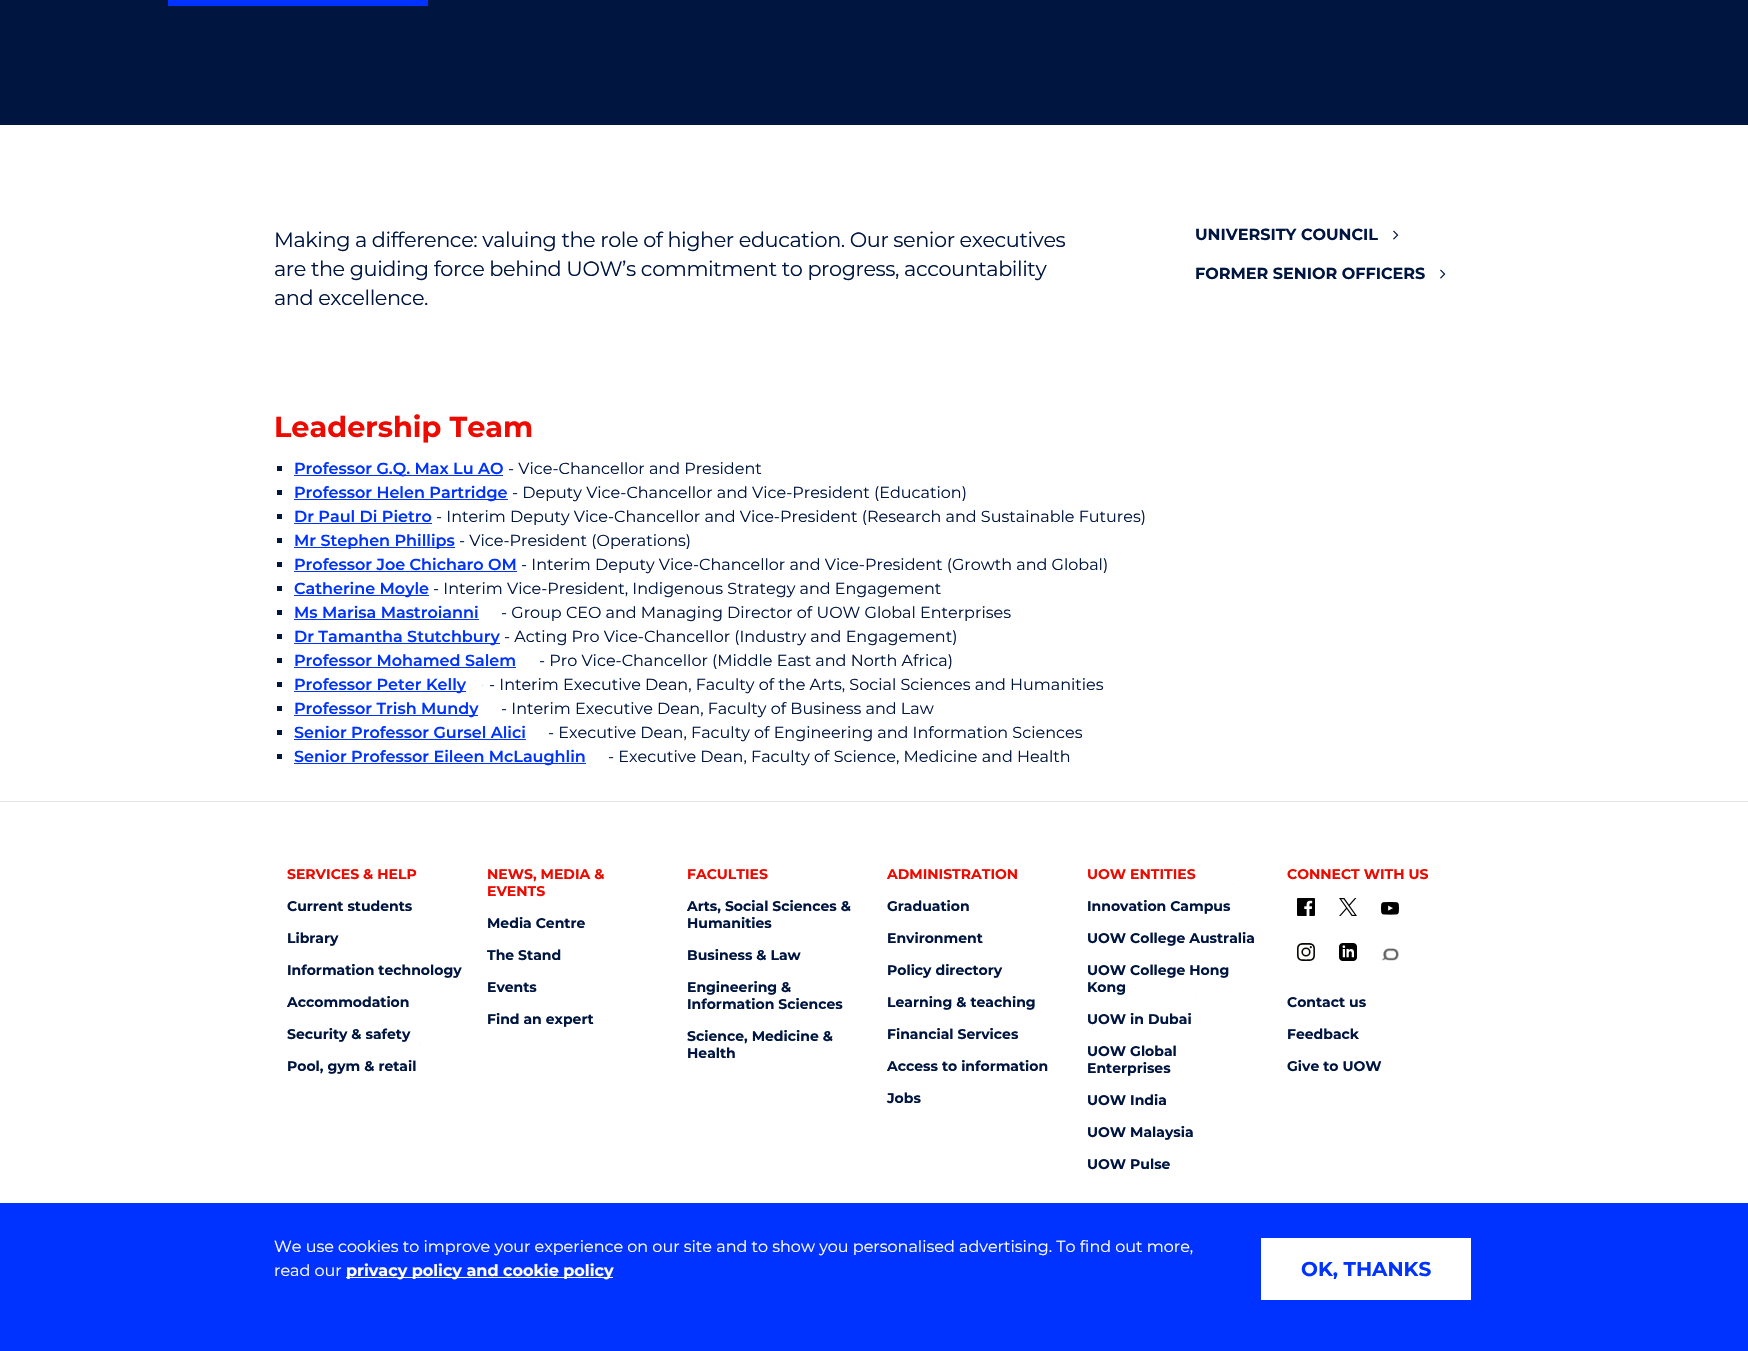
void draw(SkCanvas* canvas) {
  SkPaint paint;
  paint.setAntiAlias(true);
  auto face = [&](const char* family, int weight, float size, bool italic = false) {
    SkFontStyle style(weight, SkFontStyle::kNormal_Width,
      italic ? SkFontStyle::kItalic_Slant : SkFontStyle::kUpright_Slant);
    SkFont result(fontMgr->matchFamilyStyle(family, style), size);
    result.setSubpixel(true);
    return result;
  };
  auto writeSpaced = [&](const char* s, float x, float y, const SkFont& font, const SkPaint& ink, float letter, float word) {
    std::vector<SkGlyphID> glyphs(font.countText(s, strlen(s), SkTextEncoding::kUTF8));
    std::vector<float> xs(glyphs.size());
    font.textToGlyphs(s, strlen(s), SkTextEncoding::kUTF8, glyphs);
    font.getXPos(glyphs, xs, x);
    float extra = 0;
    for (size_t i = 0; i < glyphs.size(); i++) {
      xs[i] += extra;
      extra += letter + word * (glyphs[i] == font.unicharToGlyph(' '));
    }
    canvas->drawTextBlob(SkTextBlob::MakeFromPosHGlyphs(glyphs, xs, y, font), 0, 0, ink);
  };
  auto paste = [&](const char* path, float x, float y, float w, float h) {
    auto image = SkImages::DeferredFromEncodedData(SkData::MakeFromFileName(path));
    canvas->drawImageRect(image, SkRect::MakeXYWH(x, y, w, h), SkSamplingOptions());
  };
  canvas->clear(0xffffffff);
  paint.setColor(0xff001641);
  canvas->drawRect(SkRect::MakeXYWH(0, 0, 1748, 125), paint);
  paint.setColor(0xff0033ff);
  canvas->drawRect(SkRect::MakeXYWH(168, 0, 260, 6), paint);
  paste("img/1.png", 1393, 230, 6, 10);
  paste("img/1.png", 1440, 269, 6, 10);
  {
    const struct { float x, y, w, h; SkColor color; } items[] = {
      {277, 466, 5, 5, 0xff001641},
      {294, 475, 209, 1, 0xff0033ff},
      {277, 490, 5, 5, 0xff001641},
      {294, 499, 214, 1, 0xff0033ff},
      {277, 514, 5, 5, 0xff001641},
      {294, 523, 138, 1, 0xff0033ff},
      {277, 538, 5, 5, 0xff001641},
      {294, 547, 161, 1, 0xff0033ff},
      {277, 562, 5, 5, 0xff001641},
      {294, 571, 223, 1, 0xff0033ff},
      {277, 586, 5, 5, 0xff001641},
      {294, 595, 135, 1, 0xff0033ff},
      {277, 610, 5, 5, 0xff001641},
      {294, 619, 185, 1, 0xff0033ff},
      {277, 634, 5, 5, 0xff001641},
      {294, 643, 206, 1, 0xff0033ff},
      {277, 658, 5, 5, 0xff001641},
      {294, 667, 222, 1, 0xff0033ff},
      {277, 682, 5, 5, 0xff001641},
      {294, 691, 172, 1, 0xff0033ff},
      {277, 706, 5, 5, 0xff001641},
      {294, 715, 184, 1, 0xff0033ff},
      {482, 685, 1, 1, 0xffc7d2ff},
      {277, 730, 5, 5, 0xff001641},
      {294, 739, 232, 1, 0xff0033ff},
      {277, 754, 5, 5, 0xff001641},
      {294, 763, 292, 1, 0xff0033ff},
      {0, 801, 1748, 1, 0xffe5e5e5},
      {419, 1044, 1, 1, 0xfff2f3f6},
      {1233, 884, 1, 1, 0xfff2f3f6},
      {1258, 916, 1, 1, 0xfff2f3f6},
      {1195, 997, 1, 1, 0xfff2f3f6},
      {1197, 1110, 1, 1, 0xfff2f3f6},
      {1173, 1142, 1, 1, 0xfff2f3f6},
    };
    for (auto [x, y, w, h, color] : items) {
      paint.setColor(color);
      canvas->drawRect(SkRect::MakeXYWH(x, y, w, h), paint);
    }
  }
  paste("img/2.png", 1297, 898, 18, 18);
  paste("img/3.png", 1339, 898, 18, 18);
  paste("img/4.png", 1381, 902, 18, 13);
  paste("img/5.png", 1297, 943, 18, 18);
  paste("img/6.png", 1339, 943, 18, 18);
  paste("img/7.png", 1381, 948, 18, 13);
  {
    const struct { float x, y, w, h; SkColor color; } items[] = {
      {0, 1203, 1748, 148, 0xff0033ff},
      {346, 1277, 267, 1, 0xffffffff},
      {1261, 1238, 210, 62, 0xffffffff},
    };
    for (auto [x, y, w, h, color] : items) {
      paint.setColor(color);
      canvas->drawRect(SkRect::MakeXYWH(x, y, w, h), paint);
    }
  }
  auto f0 = face("Montserrat", 400, 20.8f);
  paint.setColor(0xff001641);
  {
    const struct { const char* s; float x, y; } items[] = {
      {"Making a difference: valuing the role of higher education. Our senior executives", 274, 247},
      {"are the guiding force behind UOW’s commitment to progress, accountability", 274, 276},
      {"and excellence.", 274, 305},
    };
    for (auto [s, x, y] : items) {
      writeSpaced(s, x, y, f0, paint, -0.42f, 0);
    }
  }
  auto f1 = face("Montserrat", 700, 16);
  canvas->drawString("UNIVERSITY COUNCIL", 1195, 240, f1, paint);
  canvas->drawString("FORMER SENIOR OFFICERS", 1195, 279, f1, paint);
  auto f2 = face("Montserrat", 700, 28.75f);
  paint.setColor(0xffed0a00);
  canvas->drawString("Leadership Team", 274, 437, f2, paint);
  auto f3 = face("Montserrat", 600, 16);
  paint.setColor(0xff0033ff);
  canvas->drawString("Professor G.Q. Max Lu AO", 294, 474, f3, paint);
  auto f4 = face("Montserrat", 400, 16);
  paint.setColor(0xff001641);
  canvas->drawString("- Vice-Chancellor and President", 508, 474, f4, paint);
  paint.setColor(0xff0033ff);
  canvas->drawString("Professor Helen Partridge", 294, 498, f3, paint);
  paint.setColor(0xff001641);
  canvas->drawString("- Deputy Vice-Chancellor and Vice-President (Education)", 512, 498, f4, paint);
  paint.setColor(0xff0033ff);
  canvas->drawString("Dr Paul Di Pietro", 294, 522, f3, paint);
  paint.setColor(0xff001641);
  canvas->drawString("- Interim Deputy Vice-Chancellor and Vice-President (Research and Sustainable Futures)", 436, 522, f4, paint);
  paint.setColor(0xff0033ff);
  canvas->drawString("Mr Stephen Phillips", 294, 546, f3, paint);
  paint.setColor(0xff001641);
  canvas->drawString("- Vice-President (Operations)", 459, 546, f4, paint);
  paint.setColor(0xff0033ff);
  canvas->drawString("Professor Joe Chicharo OM", 294, 570, f3, paint);
  paint.setColor(0xff001641);
  canvas->drawString("- Interim Deputy Vice-Chancellor and Vice-President (Growth and Global)", 521, 570, f4, paint);
  paint.setColor(0xff0033ff);
  canvas->drawString("Catherine Moyle", 294, 594, f3, paint);
  paint.setColor(0xff001641);
  canvas->drawString("- Interim Vice-President, Indigenous Strategy and Engagement", 433, 594, f4, paint);
  paint.setColor(0xff0033ff);
  canvas->drawString("Ms Marisa Mastroianni", 294, 618, f3, paint);
  paint.setColor(0xff001641);
  canvas->drawString("- Group CEO and Managing Director of UOW Global Enterprises", 501, 618, f4, paint);
  paint.setColor(0xff0033ff);
  canvas->drawString("Dr Tamantha Stutchbury", 294, 642, f3, paint);
  paint.setColor(0xff001641);
  canvas->drawString("- Acting Pro Vice-Chancellor (Industry and Engagement)", 504, 642, f4, paint);
  paint.setColor(0xff0033ff);
  canvas->drawString("Professor Mohamed Salem", 294, 666, f3, paint);
  paint.setColor(0xffc7d2ff);
  canvas->drawRect(SkRect::MakeXYWH(520, 637, 1, 1), paint);
  paint.setColor(0xff001641);
  canvas->drawString("- Pro Vice-Chancellor (Middle East and North Africa)", 539, 666, f4, paint);
  paint.setColor(0xff0033ff);
  canvas->drawString("Professor Peter Kelly", 294, 690, f3, paint);
  paint.setColor(0xff001641);
  canvas->drawString("- Interim Executive Dean, Faculty of the Arts, Social Sciences and Humanities", 489, 690, f4, paint);
  paint.setColor(0xff0033ff);
  canvas->drawString("Professor Trish Mundy", 294, 714, f3, paint);
  paint.setColor(0xff001641);
  canvas->drawString("- Interim Executive Dean, Faculty of Business and Law", 501, 714, f4, paint);
  paint.setColor(0xff0033ff);
  canvas->drawString("Senior Professor Gursel Alici", 294, 738, f3, paint);
  paint.setColor(0xff001641);
  canvas->drawString("- Executive Dean, Faculty of Engineering and Information Sciences", 548, 738, f4, paint);
  paint.setColor(0xff0033ff);
  canvas->drawString("Senior Professor Eileen McLaughlin", 294, 762, f3, paint);
  paint.setColor(0xff001641);
  canvas->drawString("- Executive Dean, Faculty of Science, Medicine and Health", 608, 762, f4, paint);
  auto f5 = face("Montserrat", 700, 14);
  paint.setColor(0xffed0a00);
  canvas->drawString("SERVICES & HELP", 287, 879, f5, paint);
  paint.setColor(0xff001641);
  {
    const struct { const char* s; float x, y; } items[] = {
      {"Current students", 287, 911},
      {"Library", 287, 943},
      {"Information technology", 287, 975},
      {"Accommodation", 287, 1007},
      {"Security & safety", 287, 1039},
      {"Pool, gym & retail", 287, 1071},
    };
    for (auto [s, x, y] : items) {
      canvas->drawString(s, x, y, f5, paint);
    }
  }
  paint.setColor(0xffed0a00);
  canvas->drawString("NEWS, MEDIA &", 487, 879, f5, paint);
  canvas->drawString("EVENTS", 487, 896, f5, paint);
  paint.setColor(0xff001641);
  {
    const struct { const char* s; float x, y; } items[] = {
      {"Media Centre", 487, 928},
      {"The Stand", 487, 960},
      {"Events", 487, 992},
      {"Find an expert", 487, 1024},
    };
    for (auto [s, x, y] : items) {
      canvas->drawString(s, x, y, f5, paint);
    }
  }
  paint.setColor(0xffed0a00);
  canvas->drawString("FACULTIES", 687, 879, f5, paint);
  paint.setColor(0xff001641);
  {
    const struct { const char* s; float x, y; } items[] = {
      {"Arts, Social Sciences &", 687, 911},
      {"Humanities", 687, 928},
      {"Business & Law", 687, 960},
      {"Engineering &", 687, 992},
      {"Information Sciences", 687, 1009},
      {"Science, Medicine &", 687, 1041},
      {"Health", 687, 1058},
    };
    for (auto [s, x, y] : items) {
      canvas->drawString(s, x, y, f5, paint);
    }
  }
  paint.setColor(0xffed0a00);
  canvas->drawString("ADMINISTRATION", 887, 879, f5, paint);
  paint.setColor(0xff001641);
  {
    const struct { const char* s; float x, y; } items[] = {
      {"Graduation", 887, 911},
      {"Environment", 887, 943},
      {"Policy directory", 887, 975},
      {"Learning & teaching", 887, 1007},
      {"Financial Services", 887, 1039},
      {"Access to information", 887, 1071},
      {"Jobs", 887, 1103},
    };
    for (auto [s, x, y] : items) {
      canvas->drawString(s, x, y, f5, paint);
    }
  }
  paint.setColor(0xffed0a00);
  canvas->drawString("UOW ENTITIES", 1087, 879, f5, paint);
  paint.setColor(0xff001641);
  {
    const struct { const char* s; float x, y; } items[] = {
      {"Innovation Campus", 1087, 911},
      {"UOW College Australia", 1087, 943},
      {"UOW College Hong", 1087, 975},
    };
    for (auto [s, x, y] : items) {
      canvas->drawString(s, x, y, f5, paint);
    }
  }
  paint.setColor(0xfff2f3f6);
  canvas->drawRect(SkRect::MakeXYWH(1129, 965, 1, 1), paint);
  paint.setColor(0xff001641);
  {
    const struct { const char* s; float x, y; } items[] = {
      {"Kong", 1087, 992},
      {"UOW in Dubai", 1087, 1024},
      {"UOW Global", 1087, 1056},
      {"Enterprises", 1087, 1073},
      {"UOW India", 1087, 1105},
      {"UOW Malaysia", 1087, 1137},
      {"UOW Pulse", 1087, 1169},
    };
    for (auto [s, x, y] : items) {
      canvas->drawString(s, x, y, f5, paint);
    }
  }
  paint.setColor(0xffed0a00);
  canvas->drawString("CONNECT WITH US", 1287, 879, f5, paint);
  paint.setColor(0xff001641);
  {
    const struct { const char* s; float x, y; } items[] = {
      {"Contact us", 1287, 1007},
      {"Feedback", 1287, 1039},
      {"Give to UOW", 1287, 1071},
    };
    for (auto [s, x, y] : items) {
      canvas->drawString(s, x, y, f5, paint);
    }
  }
  paint.setColor(0xffffffff);
  canvas->drawString("We use cookies to improve your experience on our site and to show you personalised advertising. To find out more,", 274, 1252, f4, paint);
  canvas->drawString("read our", 274, 1276, f4, paint);
  canvas->drawString("privacy policy and cookie policy", 346, 1276, f1, paint);
  auto f6 = face("Montserrat", 700, 20);
  paint.setColor(0xff0033ff);
  canvas->drawString("OK, THANKS", 1301, 1276, f6, paint);
}
